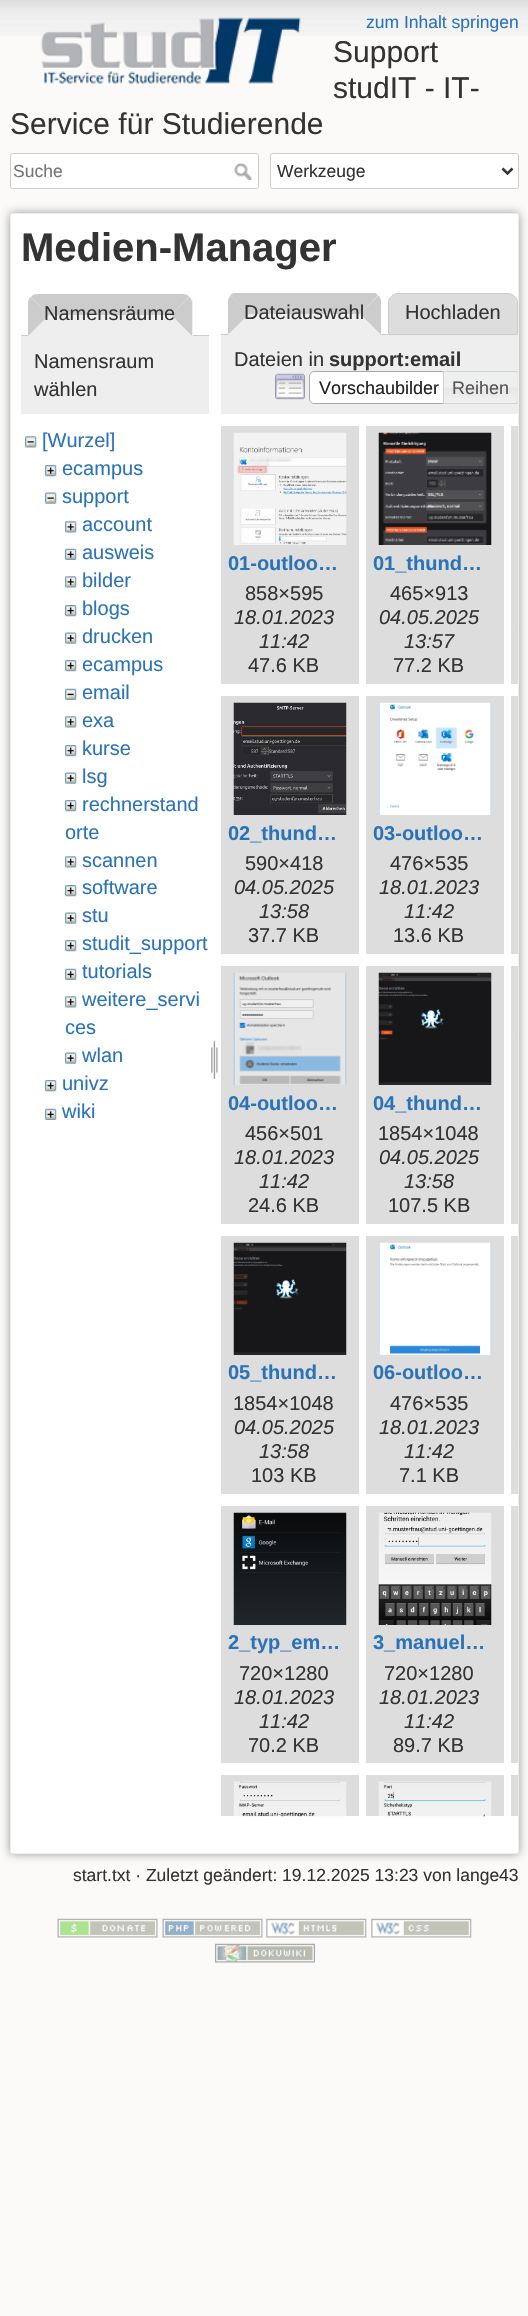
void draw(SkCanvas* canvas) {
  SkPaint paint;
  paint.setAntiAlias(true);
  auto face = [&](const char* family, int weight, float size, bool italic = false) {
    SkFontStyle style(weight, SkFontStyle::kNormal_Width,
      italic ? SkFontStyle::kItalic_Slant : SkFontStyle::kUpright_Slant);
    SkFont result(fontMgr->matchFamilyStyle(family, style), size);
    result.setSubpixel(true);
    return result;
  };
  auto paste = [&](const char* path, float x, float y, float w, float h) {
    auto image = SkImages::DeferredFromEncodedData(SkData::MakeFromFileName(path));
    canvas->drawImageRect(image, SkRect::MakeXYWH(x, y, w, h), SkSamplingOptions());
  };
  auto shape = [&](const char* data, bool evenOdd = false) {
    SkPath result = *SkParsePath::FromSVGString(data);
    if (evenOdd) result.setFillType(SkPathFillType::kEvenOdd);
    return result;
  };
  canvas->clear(0xfffbfaf9);
  paste("img/1.png", 0, 0, 528, 36);
  paste("img/2.png", 40, 17, 261, 67);
  paint.setColor(0xffffffff);
  canvas->drawRoundRect(SkRect::MakeXYWH(10.5f, 153.5f, 248, 35), 2, 2, paint);
  paint.setStroke(true);
  paint.setStrokeWidth(1);
  paint.setColor(0xffcccccc);
  canvas->drawRoundRect(SkRect::MakeXYWH(10.5f, 153.5f, 248, 35), 2, 2, paint);
  paste("img/3.png", 234, 162, 18, 18);
  paint.setStroke(false);
  paint.setColor(0xffffffff);
  canvas->drawRoundRect(SkRect::MakeXYWH(270.5f, 153.5f, 248, 35), 2, 2, paint);
  paint.setStroke(true);
  paint.setColor(0xffcccccc);
  canvas->drawRoundRect(SkRect::MakeXYWH(270.5f, 153.5f, 248, 35), 2, 2, paint);
  paint.setStrokeWidth(2.5f);
  paint.setColor(0xff333333);
  canvas->drawPath(shape("M502.5 168.5L507.5 173.5L512.5 168.5"), paint);
  paint.setStroke(false);
  paint.setColor(0xff999999);
  paint.setMaskFilter(SkMaskFilter::MakeBlur(kNormal_SkBlurStyle, 5));
  canvas->drawRoundRect(SkRect::MakeXYWH(10, 213, 509, 1641), 2.5f, 2.5f, paint);
  paint.setMaskFilter(nullptr);
  paint.setColor(0xffffffff);
  canvas->drawRoundRect(SkRect::MakeXYWH(10.5f, 213.5f, 508, 1640), 2, 2, paint);
  paint.setStroke(true);
  paint.setStrokeWidth(1);
  paint.setColor(0xffeeeeee);
  canvas->drawRoundRect(SkRect::MakeXYWH(10.5f, 213.5f, 508, 1640), 2, 2, paint);
  paint.setStroke(false);
  paint.setColor(0xffcccccc);
  canvas->drawRect(SkRect::MakeXYWH(21, 335, 188, 1), paint);
  paint.setColor(0xffeeeeee);
  canvas->drawPath(shape("M38 294H183C188.5 294 193 298.5 193 304V336H28V304C28 298.5 32.5 294 38 294Z"), paint);
  paint.setColor(0xffcccccc);
  canvas->drawPath(shape("M38 294C35 294 32 295 31 297L49 315H171L189 297C188 295 185 294 182 294Z"), paint);
  canvas->drawPath(shape("M192 336V304C192 301 191 298.5 189.5 297L171 315Z"), paint);
  paint.setColor(0xffeeeeee);
  canvas->drawPath(shape("M192 336L171 315H49L28 336Z"), paint);
  paint.setColor(0xffcccccc);
  canvas->drawPath(shape("M30.5 297C29 298.5 28 301 28 304V336L49 315Z"), paint);
  paint.setColor(0xffeeeeee);
  canvas->drawRect(SkRect::MakeXYWH(21, 336, 188, 78), paint);
  paste("img/4.png", 25, 436, 12, 12);
  paste("img/5.png", 45, 465, 12, 12);
  paste("img/6.png", 45, 492, 12, 12);
  paste("img/7.png", 65, 521, 12, 12);
  paste("img/8.png", 65, 548, 12, 12);
  paste("img/7.png", 65, 576, 12, 12);
  paste("img/5.png", 65, 605, 12, 12);
  paste("img/9.png", 65, 632, 12, 12);
  paste("img/5.png", 65, 660, 12, 12);
  paste("img/10.png", 65, 688, 12, 12);
  paste("img/7.png", 65, 716, 12, 12);
  paste("img/5.png", 65, 745, 12, 12);
  paste("img/11.png", 65, 772, 12, 12);
  paste("img/5.png", 65, 800, 12, 12);
  paste("img/7.png", 65, 856, 12, 12);
  paste("img/5.png", 65, 885, 12, 12);
  paste("img/9.png", 65, 912, 12, 12);
  paste("img/5.png", 65, 940, 12, 12);
  paste("img/8.png", 65, 968, 12, 12);
  paste("img/7.png", 65, 996, 12, 12);
  paste("img/9.png", 65, 1052, 12, 12);
  paste("img/5.png", 45, 1080, 12, 12);
  paste("img/8.png", 45, 1108, 12, 12);
  paste("img/12.png", 211, 1040, 7, 39);
  paint.setColor(0xffcccccc);
  canvas->drawRect(SkRect::MakeXYWH(221, 334, 167, 1), paint);
  paint.setColor(0xffeeeeee);
  canvas->drawPath(shape("M238 293H371C376.5 293 381 297.5 381 303V335H228V303C228 297.5 232.5 293 238 293Z"), paint);
  canvas->save();
  canvas->clipRect(SkRect::MakeXYWH(221, 293, 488, 42));
  paint.setColor(0xffcccccc);
  canvas->drawPath(shape("M374 292H235C233 293 232 294 230 295L249 314H360L378 295Z"), paint);
  canvas->restore();
  canvas->drawPath(shape("M378.5 295.5L360 314L381 335V302C381 299.5 380 297 378.5 295.5Z"), paint);
  paint.setColor(0xffeeeeee);
  canvas->drawPath(shape("M381 335L360 314H249L228 334V335Z"), paint);
  paint.setColor(0xffcccccc);
  canvas->drawPath(shape("M228 334.5L249 314L230.5 295.5C229 297.5 228 299.5 228 302Z"), paint);
  paint.setColor(0xffdddddd);
  canvas->drawPath(shape("M398 293.5H508C513 293.5 517.5 298 517.5 303V334.5H388.5V303C388.5 298 393 293.5 398 293.5Z"), paint);
  paint.setStroke(true);
  paint.setColor(0xffcccccc);
  canvas->drawPath(shape("M398 293.5H508C513 293.5 517.5 298 517.5 303V334.5H388.5V303C388.5 298 393 293.5 398 293.5Z"), paint);
  paint.setStroke(false);
  paint.setColor(0xffeeeeee);
  canvas->drawRect(SkRect::MakeXYWH(221, 335, 297, 79), paint);
  paste("img/13.png", 275, 373, 30, 27);
  paint.setColor(0xffffffff);
  canvas->drawPath(shape("M314 371H449V404H314C311 404 309 402 309 399V376C309 373 311 371 314 371Z"), paint);
  paste("img/14.png", 309, 373, 2, 30);
  paint.setStroke(true);
  paint.setColor(0xffaaaaaa);
  canvas->drawPath(shape("M314 371.5H448.5V403.5H314C311.5 403.5 309.5 401.5 309.5 399V376C309.5 373.5 311.5 371.5 314 371.5Z"), paint);
  canvas->save();
  canvas->clipPath(shape("M12 214H517C517.5 214 518 214.5 518 215V1852C518 1852.5 517.5 1853 517 1853H12C11.5 1853 11 1852.5 11 1852V215C11 214.5 11.5 214 12 214Z"), true);
  paint.setStroke(false);
  paint.setColor(0xffe6e6e6);
  canvas->drawPath(shape("M443 371H515C518 371 520 373 520 376V399C520 402 518 404 515 404H443Z"), paint);
  canvas->restore();
  paste("img/15.png", 442, 371, 76, 33);
  paint.setColor(0xffd3d3d3);
  canvas->drawPath(shape("M443 371V404H515C516 404 517 404 518 403V402L515 403H444V372H515L518 373V372L515 371Z"), paint);
  paint.setColor(0xffdddddd);
  canvas->drawRect(SkRect::MakeXYWH(221, 426, 138, 258), paint);
  paste("img/16.png", 233, 432, 114, 113);
  canvas->drawRect(SkRect::MakeXYWH(366, 426, 138, 258), paint);
  paste("img/17.png", 378, 432, 114, 113);
  canvas->drawRect(SkRect::MakeXYWH(511, 426, 7, 258), paint);
  canvas->drawRect(SkRect::MakeXYWH(221, 696, 138, 258), paint);
  paste("img/18.png", 233, 702, 114, 113);
  canvas->drawRect(SkRect::MakeXYWH(366, 696, 138, 258), paint);
  paste("img/19.png", 378, 702, 114, 113);
  canvas->drawRect(SkRect::MakeXYWH(511, 696, 7, 258), paint);
  canvas->drawRect(SkRect::MakeXYWH(221, 966, 138, 258), paint);
  paste("img/20.png", 233, 972, 114, 113);
  canvas->drawRect(SkRect::MakeXYWH(366, 966, 138, 258), paint);
  paste("img/21.png", 378, 972, 114, 113);
  canvas->drawRect(SkRect::MakeXYWH(511, 966, 7, 258), paint);
  canvas->drawRect(SkRect::MakeXYWH(221, 1236, 138, 258), paint);
  paste("img/22.png", 233, 1242, 114, 113);
  canvas->drawRect(SkRect::MakeXYWH(366, 1236, 138, 258), paint);
  paste("img/23.png", 378, 1242, 114, 113);
  canvas->drawRect(SkRect::MakeXYWH(511, 1236, 7, 258), paint);
  canvas->drawRect(SkRect::MakeXYWH(221, 1506, 138, 257), paint);
  paste("img/24.png", 233, 1512, 114, 113);
  canvas->drawRect(SkRect::MakeXYWH(366, 1506, 138, 257), paint);
  paste("img/25.png", 378, 1512, 114, 113);
  canvas->drawRect(SkRect::MakeXYWH(511, 1506, 7, 257), paint);
  canvas->drawRect(SkRect::MakeXYWH(221, 1775, 138, 41), paint);
  paste("img/26.png", 233, 1781, 114, 36);
  canvas->drawRect(SkRect::MakeXYWH(366, 1775, 138, 41), paint);
  paste("img/27.png", 378, 1781, 114, 36);
  canvas->drawRect(SkRect::MakeXYWH(511, 1775, 7, 41), paint);
  paste("img/28.png", 57, 1918, 101, 20);
  paste("img/29.png", 162, 1918, 101, 20);
  paste("img/30.png", 266, 1918, 101, 20);
  paste("img/31.png", 371, 1918, 101, 20);
  paste("img/32.png", 215, 1943, 100, 20);
  auto f0 = face("Liberation Sans", 400, 17.5f);
  paint.setColor(0xff2b73b7);
  canvas->drawString("zum Inhalt springen", 366, 28, f0, paint);
  auto f1 = face("Liberation Sans", 400, 30);
  paint.setColor(0xff333333);
  {
    const struct { const char* s; float x, y; } items[] = {
      {"Support", 333, 62},
      {"studIT - IT-", 333, 98},
      {"Service für Studierende", 10, 134},
    };
    for (auto [s, x, y] : items) {
      canvas->drawString(s, x, y, f1, paint);
    }
  }
  paint.setColor(0xff757575);
  canvas->drawString("Suche", 13, 177, f0, paint);
  paint.setColor(0xff333333);
  canvas->drawString("Werkzeuge", 277, 177, f0, paint);
  auto f2 = face("Liberation Sans", 700, 40);
  canvas->drawString("Medien-Manager", 21, 261, f2, paint);
  auto f3 = face("Liberation Sans", 400, 20);
  {
    const struct { const char* s; float x, y; } items[] = {
      {"Namensräume", 44, 320},
      {"Namensraum", 34, 368},
      {"wählen", 34, 396},
    };
    for (auto [s, x, y] : items) {
      canvas->drawString(s, x, y, f3, paint);
    }
  }
  paint.setColor(0xff2b73b7);
  {
    const struct { const char* s; float x, y; } items[] = {
      {"[Wurzel]", 42, 447},
      {"ecampus", 62, 475},
      {"support", 62, 503},
      {"account", 82, 531},
      {"ausweis", 82, 559},
      {"bilder", 82, 587},
      {"blogs", 82, 615},
      {"drucken", 82, 643},
      {"ecampus", 82, 671},
      {"email", 82, 699},
      {"exa", 82, 727},
      {"kurse", 82, 755},
      {"lsg", 82, 783},
      {"rechnerstand", 82, 811},
      {"orte", 65, 839},
      {"scannen", 82, 867},
      {"software", 82, 894},
      {"stu", 82, 922},
      {"studit_support", 82, 950},
      {"tutorials", 82, 978},
      {"weitere_servi", 82, 1006},
      {"ces", 65, 1034},
      {"wlan", 82, 1062},
      {"univz", 62, 1090},
      {"wiki", 62, 1118},
    };
    for (auto [s, x, y] : items) {
      canvas->drawString(s, x, y, f3, paint);
    }
  }
  paint.setColor(0xff333333);
  {
    const struct { const char* s; float x, y; } items[] = {
      {"Dateiauswahl", 244, 319},
      {"Hochladen", 405, 319},
      {"Dateien in", 234, 366},
    };
    for (auto [s, x, y] : items) {
      canvas->drawString(s, x, y, f3, paint);
    }
  }
  auto f4 = face("Liberation Sans", 700, 20);
  canvas->drawString("support:email", 329, 366, f4, paint);
  auto f5 = face("Liberation Sans", 400, 18);
  paint.setColor(0xff212121);
  canvas->drawString("Vorschaubilder", 319, 394, f5, paint);
  paint.setColor(0xff555555);
  canvas->drawString("Reihen", 452, 394, f5, paint);
  paint.setColor(0xff2b73b7);
  canvas->drawString("01-outloo…", 228, 570, f4, paint);
  paint.setColor(0xff333333);
  canvas->drawString("858×595", 245, 600, f3, paint);
  auto f6 = face("Liberation Sans", 400, 20, true);
  canvas->drawString("18.01.2023", 234, 624, f6, paint);
  canvas->drawString("11:42", 259, 648, f6, paint);
  canvas->drawString("47.6 KB", 248, 672, f3, paint);
  paint.setColor(0xff2b73b7);
  canvas->drawString("01_thund…", 373, 570, f4, paint);
  paint.setColor(0xff333333);
  canvas->drawString("465×913", 390, 600, f3, paint);
  canvas->drawString("04.05.2025", 379, 624, f6, paint);
  canvas->drawString("13:57", 404, 648, f6, paint);
  canvas->drawString("77.2 KB", 393, 672, f3, paint);
  paint.setColor(0xff2b73b7);
  canvas->drawString("02_thund…", 228, 840, f4, paint);
  paint.setColor(0xff333333);
  canvas->drawString("590×418", 245, 870, f3, paint);
  canvas->drawString("04.05.2025", 234, 894, f6, paint);
  canvas->drawString("13:58", 259, 918, f6, paint);
  canvas->drawString("37.7 KB", 248, 942, f3, paint);
  paint.setColor(0xff2b73b7);
  canvas->drawString("03-outloo…", 373, 840, f4, paint);
  paint.setColor(0xff333333);
  canvas->drawString("476×535", 390, 870, f3, paint);
  canvas->drawString("18.01.2023", 379, 894, f6, paint);
  canvas->drawString("11:42", 404, 918, f6, paint);
  canvas->drawString("13.6 KB", 393, 942, f3, paint);
  paint.setColor(0xff2b73b7);
  canvas->drawString("04-outloo…", 228, 1110, f4, paint);
  paint.setColor(0xff333333);
  canvas->drawString("456×501", 245, 1140, f3, paint);
  canvas->drawString("18.01.2023", 234, 1164, f6, paint);
  canvas->drawString("11:42", 259, 1188, f6, paint);
  canvas->drawString("24.6 KB", 248, 1212, f3, paint);
  paint.setColor(0xff2b73b7);
  canvas->drawString("04_thund…", 373, 1110, f4, paint);
  paint.setColor(0xff333333);
  canvas->drawString("1854×1048", 378, 1140, f3, paint);
  canvas->drawString("04.05.2025", 379, 1164, f6, paint);
  canvas->drawString("13:58", 404, 1188, f6, paint);
  canvas->drawString("107.5 KB", 388, 1212, f3, paint);
  paint.setColor(0xff2b73b7);
  canvas->drawString("05_thund…", 228, 1379, f4, paint);
  paint.setColor(0xff333333);
  canvas->drawString("1854×1048", 233, 1410, f3, paint);
  canvas->drawString("04.05.2025", 234, 1434, f6, paint);
  canvas->drawString("13:58", 259, 1458, f6, paint);
  canvas->drawString("103 KB", 251, 1482, f3, paint);
  paint.setColor(0xff2b73b7);
  canvas->drawString("06-outloo…", 373, 1379, f4, paint);
  paint.setColor(0xff333333);
  canvas->drawString("476×535", 390, 1410, f3, paint);
  canvas->drawString("18.01.2023", 379, 1434, f6, paint);
  canvas->drawString("11:42", 404, 1458, f6, paint);
  canvas->drawString("7.1 KB", 399, 1482, f3, paint);
  paint.setColor(0xff2b73b7);
  canvas->drawString("2_typ_em…", 228, 1649, f4, paint);
  paint.setColor(0xff333333);
  canvas->drawString("720×1280", 239, 1680, f3, paint);
  canvas->drawString("18.01.2023", 234, 1704, f6, paint);
  canvas->drawString("11:42", 259, 1728, f6, paint);
  canvas->drawString("70.2 KB", 248, 1752, f3, paint);
  paint.setColor(0xff2b73b7);
  canvas->drawString("3_manuel…", 373, 1649, f4, paint);
  paint.setColor(0xff333333);
  canvas->drawString("720×1280", 384, 1680, f3, paint);
  canvas->drawString("18.01.2023", 379, 1704, f6, paint);
  canvas->drawString("11:42", 404, 1728, f6, paint);
  canvas->drawString("89.7 KB", 393, 1752, f3, paint);
  canvas->drawString("start.txt · Zuletzt geändert: 19.12.2025 13:23 von lange43", 73, 1881, f0, paint);
}
